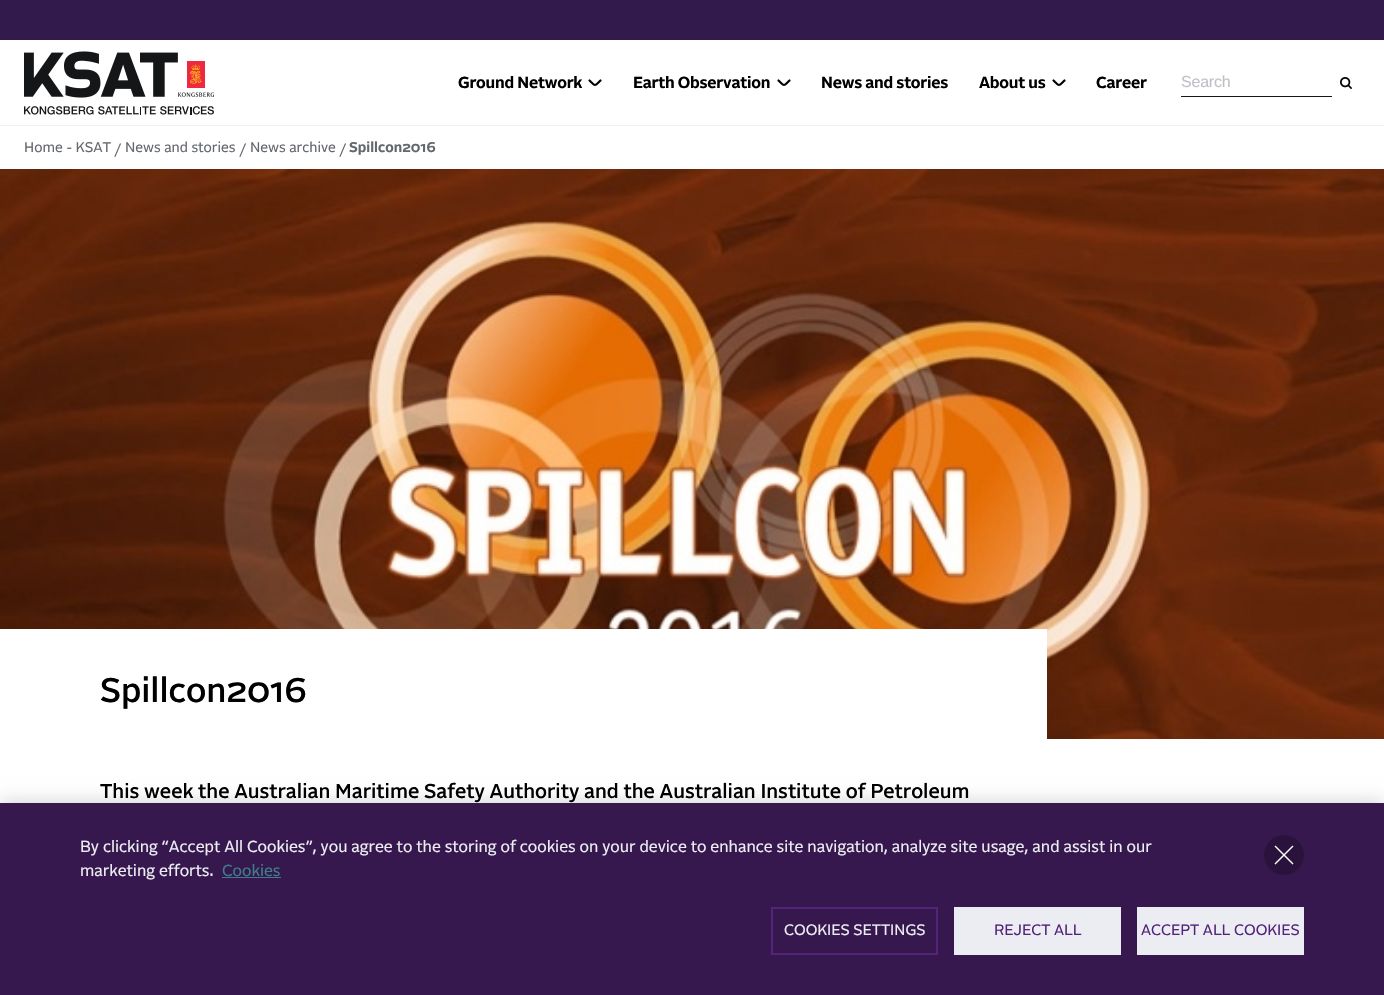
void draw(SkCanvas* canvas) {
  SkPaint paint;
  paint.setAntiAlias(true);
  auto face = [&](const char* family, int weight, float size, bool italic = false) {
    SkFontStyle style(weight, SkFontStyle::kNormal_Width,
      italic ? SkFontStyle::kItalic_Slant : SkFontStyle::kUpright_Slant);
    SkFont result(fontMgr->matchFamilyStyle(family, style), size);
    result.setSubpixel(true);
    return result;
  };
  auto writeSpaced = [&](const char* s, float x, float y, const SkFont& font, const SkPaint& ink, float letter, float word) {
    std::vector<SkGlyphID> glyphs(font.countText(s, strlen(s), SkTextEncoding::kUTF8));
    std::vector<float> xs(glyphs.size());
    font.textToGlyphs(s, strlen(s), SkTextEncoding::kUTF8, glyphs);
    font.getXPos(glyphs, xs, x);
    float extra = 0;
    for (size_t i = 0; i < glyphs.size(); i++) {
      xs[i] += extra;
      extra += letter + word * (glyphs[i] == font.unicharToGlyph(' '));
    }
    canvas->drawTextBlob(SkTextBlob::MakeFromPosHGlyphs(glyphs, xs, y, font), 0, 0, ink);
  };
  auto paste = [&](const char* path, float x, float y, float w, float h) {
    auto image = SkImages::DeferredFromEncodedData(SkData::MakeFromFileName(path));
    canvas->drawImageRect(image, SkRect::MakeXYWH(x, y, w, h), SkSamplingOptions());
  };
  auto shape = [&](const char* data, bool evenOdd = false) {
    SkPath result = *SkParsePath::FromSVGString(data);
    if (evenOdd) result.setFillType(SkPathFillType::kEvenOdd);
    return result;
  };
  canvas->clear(0xffffffff);
  paint.setColor(0xff321b4c);
  canvas->drawRect(SkRect::MakeXYWH(0, 0, 1384, 40), paint);
  paste("img/1.png", 24, 51, 190, 64);
  paint.setStroke(true);
  paint.setStrokeWidth(2.2f);
  paint.setStrokeCap(SkPaint::kRound_Cap);
  paint.setColor(0xff000000);
  canvas->drawPath(shape("M589.5 80.5C595.5 86.5 594.5 86.5 600.5 80.5"), paint);
  canvas->drawPath(shape("M778.5 80.5C784.5 86.5 783.5 86.5 789.5 80.5"), paint);
  canvas->drawPath(shape("M1053.5 80.5C1059.5 86.5 1058.5 86.5 1064.5 80.5"), paint);
  paint.setStroke(false);
  paint.setColor(0xff151618);
  canvas->drawRect(SkRect::MakeXYWH(1181, 96, 151, 1), paint);
  paste("img/2.png", 1340, 77, 12, 12);
  paint.setColor(0xfff2f2f2);
  canvas->drawRect(SkRect::MakeXYWH(0, 125, 1384, 1), paint);
  paste("img/3.png", 0, 169, 1384, 570);
  paint.setColor(0xffffffff);
  canvas->drawRect(SkRect::MakeXYWH(0, 629, 1047, 110), paint);
  paint.setColor(0x33000000);
  paint.setMaskFilter(SkMaskFilter::MakeBlur(kNormal_SkBlurStyle, 9));
  canvas->drawRect(SkRect::MakeXYWH(0, 803, 1384, 192), paint);
  paint.setMaskFilter(nullptr);
  paint.setColor(0xff36184e);
  canvas->drawRect(SkRect::MakeXYWH(0, 803, 1384, 192), paint);
  paint.setColor(0xff29123b);
  canvas->drawCircle(1284, 855, 20, paint);
  paint.setColor(0xffffffff);
  canvas->drawPath(shape("M1293 846C1293.5 846 1293.5 847 1293 847L1276 864C1276 864.5 1275 864.5 1275 864C1274.5 864 1274.5 863 1275 863L1292 846C1292 845.5 1293 845.5 1293 846Z"), paint);
  canvas->drawPath(shape("M1275 846C1275 845.5 1276 845.5 1276 846L1293 863C1293.5 863 1293.5 864 1293 864C1293 864.5 1292 864.5 1292 864L1275 847C1274.5 847 1274.5 846 1275 846Z"), paint);
  paint.setColor(0xff3e7e8b);
  canvas->drawRect(SkRect::MakeXYWH(222, 877, 59, 1), paint);
  paint.setStroke(true);
  paint.setStrokeWidth(2);
  paint.setStrokeCap(SkPaint::kButt_Cap);
  paint.setColor(0xff532478);
  canvas->drawRect(SkRect::MakeXYWH(772, 908, 165, 46), paint);
  paint.setStroke(false);
  paint.setColor(0xffecedf2);
  canvas->drawRect(SkRect::MakeXYWH(954, 907, 167, 48), paint);
  canvas->drawRect(SkRect::MakeXYWH(1137, 907, 167, 48), paint);
  auto f0 = face("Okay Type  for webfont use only", 700, 16);
  paint.setColor(0xff000000);
  {
    const struct { const char* s; float x, y; } items[] = {
      {"Ground Network", 458, 88},
      {"Earth Observation", 633, 88},
      {"News and stories", 821, 88},
      {"About us", 979, 88},
      {"Career", 1096, 88},
    };
    for (auto [s, x, y] : items) {
      writeSpaced(s, x, y, f0, paint, -0.2f, 0);
    }
  }
  auto f1 = face("Liberation Sans", 400, 16);
  paint.setColor(0xffbec1c5);
  writeSpaced("Search", 1181, 87, f1, paint, -0.2f, 0);
  auto f2 = face("Okay Type  for webfont use only", 400, 14);
  paint.setColor(0xff64686d);
  {
    const struct { const char* s; float x, y; } items[] = {
      {"Home - KSAT", 24, 152},
      {"/", 114, 154},
      {"News and stories", 125, 152},
      {"/", 239, 154},
      {"News archive", 250, 152},
      {"/", 339, 154},
    };
    for (auto [s, x, y] : items) {
      canvas->drawString(s, x, y, f2, paint);
    }
  }
  auto f3 = face("Okay Type  for webfont use only", 700, 14);
  canvas->drawString("Spillcon2016", 349, 152, f3, paint);
  auto f4 = face("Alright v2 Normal", 500, 34);
  paint.setColor(0xff000000);
  canvas->drawString("Spillcon2016", 100, 702, f4, paint);
  auto f5 = face("Alright v2 Normal", 500, 20);
  canvas->drawString("This week the Australian Maritime Safety Authority and the Australian Institute of Petroleum", 100, 798, f5, paint);
  auto f6 = face("Okay Type  for webfont use only", 400, 16);
  paint.setColor(0xffecedf2);
  canvas->drawString("By clicking “Accept All Cookies”, you agree to the storing of cookies on your device to enhance site navigation, analyze site usage, and assist in our", 80, 852, f6, paint);
  canvas->drawString("marketing efforts.", 80, 876, f6, paint);
  paint.setColor(0xff3e7e8b);
  canvas->drawString("Cookies", 222, 876, f6, paint);
  auto f7 = face("Okay Type  for webfont use only", 400, 15);
  paint.setColor(0xffecedf2);
  canvas->drawString("COOKIES SETTINGS", 784, 935, f7, paint);
  paint.setColor(0xff532478);
  canvas->drawString("REJECT ALL", 994, 935, f7, paint);
  canvas->drawString("ACCEPT ALL COOKIES", 1141, 935, f7, paint);
}
